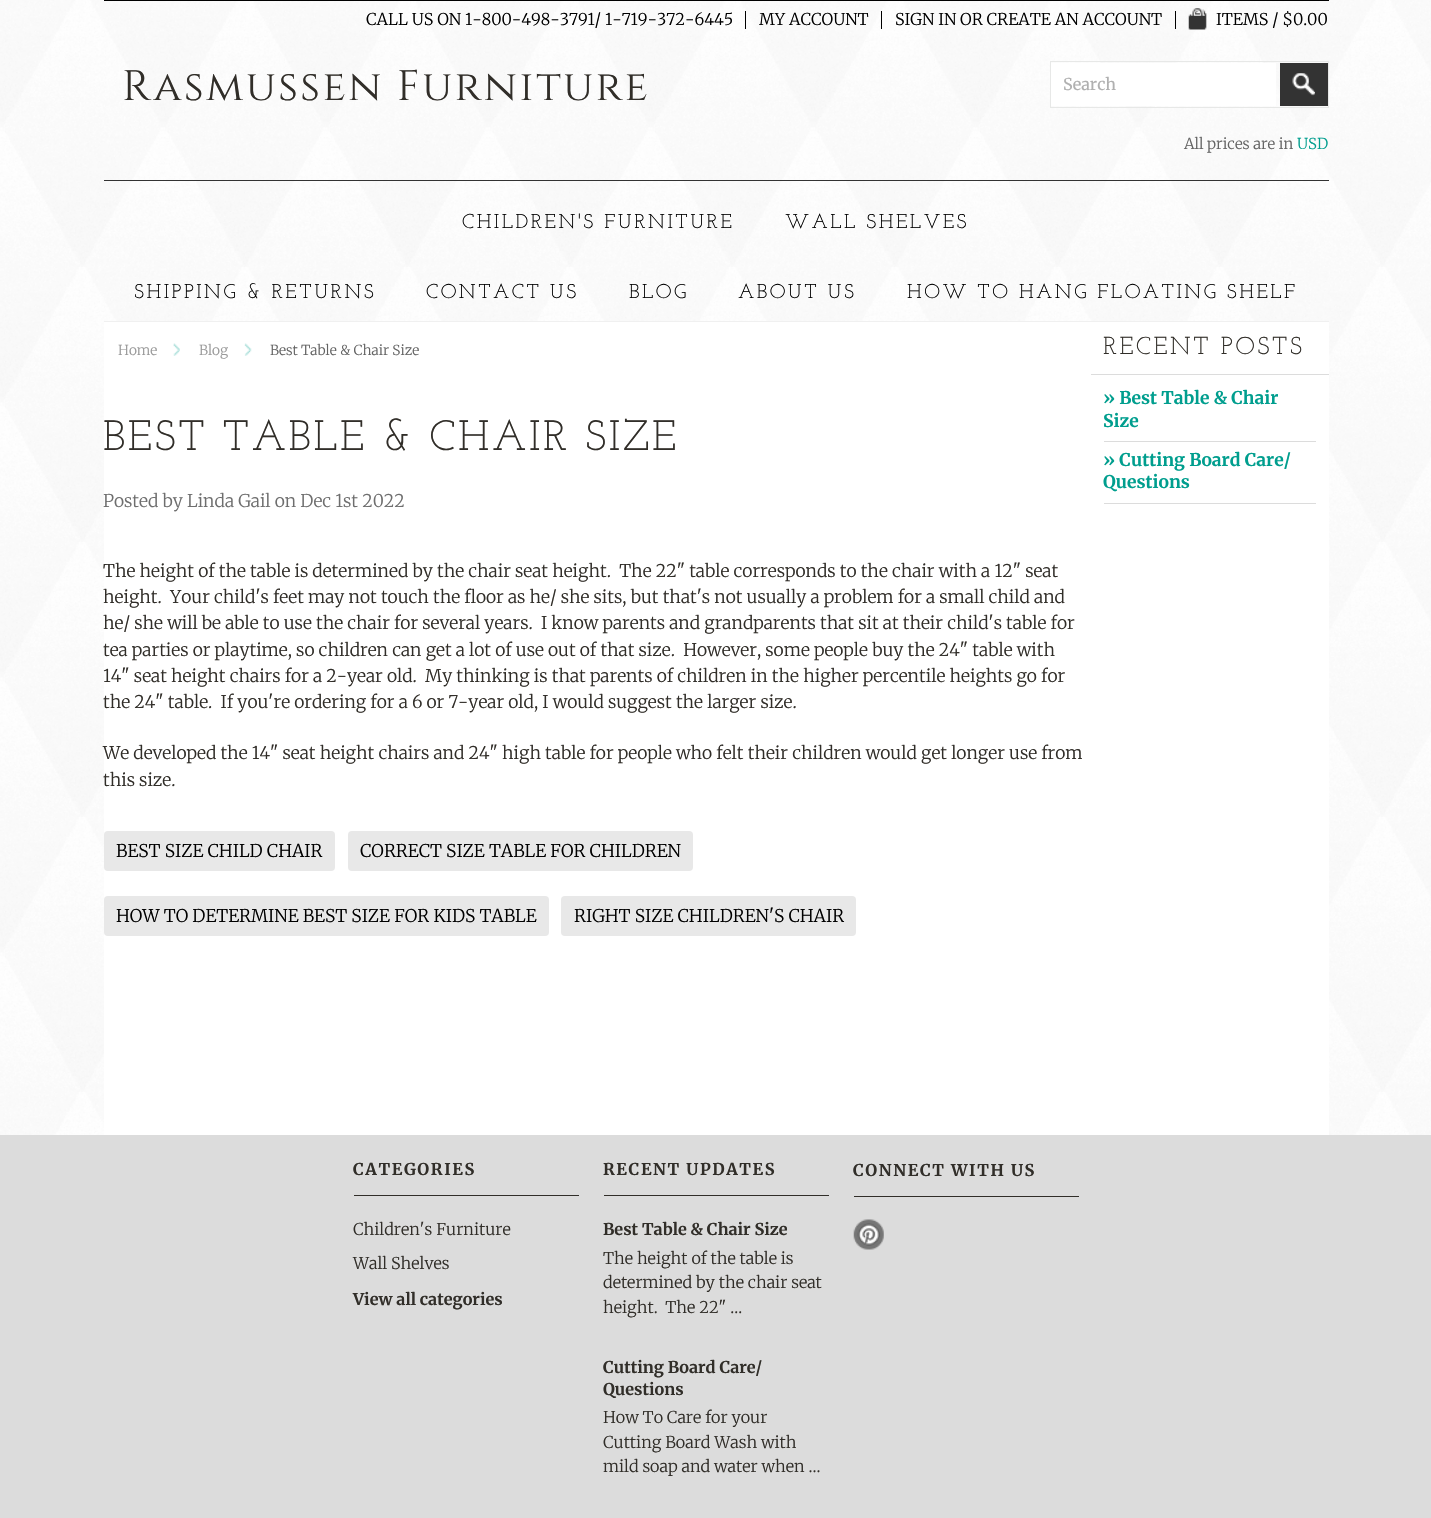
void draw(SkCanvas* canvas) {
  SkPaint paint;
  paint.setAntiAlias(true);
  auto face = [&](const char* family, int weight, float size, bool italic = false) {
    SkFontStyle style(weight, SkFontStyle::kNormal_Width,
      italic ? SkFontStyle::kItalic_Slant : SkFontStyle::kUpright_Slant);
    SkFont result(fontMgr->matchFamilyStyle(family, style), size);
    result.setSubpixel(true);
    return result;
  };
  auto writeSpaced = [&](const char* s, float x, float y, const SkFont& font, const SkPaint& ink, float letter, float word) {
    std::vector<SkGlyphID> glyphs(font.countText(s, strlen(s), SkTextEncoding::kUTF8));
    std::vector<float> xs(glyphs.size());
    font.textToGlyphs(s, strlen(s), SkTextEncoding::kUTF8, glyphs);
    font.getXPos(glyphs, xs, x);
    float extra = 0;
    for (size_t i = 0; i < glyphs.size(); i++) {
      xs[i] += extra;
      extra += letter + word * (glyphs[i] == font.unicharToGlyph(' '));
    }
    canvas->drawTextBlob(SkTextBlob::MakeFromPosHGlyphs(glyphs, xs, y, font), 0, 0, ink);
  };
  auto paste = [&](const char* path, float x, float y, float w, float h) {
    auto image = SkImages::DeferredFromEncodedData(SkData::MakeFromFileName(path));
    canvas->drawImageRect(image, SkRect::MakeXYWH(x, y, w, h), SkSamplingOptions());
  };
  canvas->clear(0xffffffff);
  paste("img/1.png", 0, 0, 1431, 1135);
  {
    const struct { float x, y, w, h; SkColor color; } items[] = {
      {104, 0, 1225, 1, 0xff000000},
      {745, 11, 1, 18, 0xff000000},
      {881, 11, 1, 18, 0xff000000},
      {1175, 11, 1, 18, 0xff000000},
    };
    for (auto [x, y, w, h, color] : items) {
      paint.setColor(color);
      canvas->drawRect(SkRect::MakeXYWH(x, y, w, h), paint);
    }
  }
  paste("img/2.png", 1188, 8, 19, 22);
  paint.setStroke(true);
  paint.setStrokeWidth(1);
  paint.setColor(0xffe7e8e7);
  canvas->drawRect(SkRect::MakeXYWH(1050.5f, 61.5f, 278, 46), paint);
  paint.setStroke(false);
  paint.setColor(0xffffffff);
  canvas->drawRect(SkRect::MakeXYWH(1051, 63, 225, 43), paint);
  paint.setColor(0xff333333);
  canvas->drawRect(SkRect::MakeXYWH(1280, 63, 48, 43), paint);
  paste("img/3.png", 1292, 73, 23, 23);
  {
    const struct { float x, y, w, h; SkColor color; } items[] = {
      {104, 180, 1225, 1, 0xff333333},
      {104, 322, 1225, 813, 0xffffffff},
      {104, 321, 1225, 1, 0xfff0f0f0},
    };
    for (auto [x, y, w, h, color] : items) {
      paint.setColor(color);
      canvas->drawRect(SkRect::MakeXYWH(x, y, w, h), paint);
    }
  }
  paste("img/4.png", 173, 343, 7, 13);
  paste("img/5.png", 244, 343, 8, 13);
  paint.setColor(0xffe8e8e8);
  canvas->drawRoundRect(SkRect::MakeXYWH(104, 831, 231, 40), 4, 4, paint);
  canvas->drawRoundRect(SkRect::MakeXYWH(348, 831, 345, 40), 4, 4, paint);
  canvas->drawRoundRect(SkRect::MakeXYWH(104, 896, 445, 40), 4, 4, paint);
  canvas->drawRoundRect(SkRect::MakeXYWH(561, 896, 295, 40), 4, 4, paint);
  {
    const struct { float x, y, w, h; SkColor color; } items[] = {
      {1091, 374, 238, 1, 0xffdcdcdc},
      {1104, 441, 212, 1, 0xffdcdcdc},
      {1104, 503, 212, 1, 0xffdcdcdc},
      {0, 1135, 1431, 383, 0xffdcdcdc},
      {354, 1195, 225, 1, 0xff312e29},
      {604, 1195, 225, 1, 0xff312e29},
      {854, 1196, 225, 1, 0xff312e29},
    };
    for (auto [x, y, w, h, color] : items) {
      paint.setColor(color);
      canvas->drawRect(SkRect::MakeXYWH(x, y, w, h), paint);
    }
  }
  paste("img/6.png", 853, 1219, 31, 31);
  auto f0 = face("Merriweather", 300, 16.25f);
  paint.setColor(0xff000000);
  {
    const struct { const char* s; float x, y; } items[] = {
      {"CALL US ON 1-800-498-3791/ 1-719-372-6445", 366, 25},
      {"MY ACCOUNT", 759, 25},
      {"SIGN IN", 895, 25},
      {"OR CREATE AN ACCOUNT", 960, 25},
      {"ITEMS / $0.00", 1216, 25},
    };
    for (auto [s, x, y] : items) {
      canvas->drawString(s, x, y, f0, paint);
    }
  }
  auto f1 = face("Cinzel", 400, 42.5f);
  paint.setColor(0xff312e29);
  writeSpaced("Rasmussen Furniture", 122, 100, f1, paint, 2.5f, 0);
  auto f2 = face("Merriweather", 400, 16.25f);
  paint.setColor(0xffb0b0b0);
  canvas->drawString("Search", 1063, 90, f2, paint);
  auto f3 = face("Merriweather", 300, 15);
  paint.setColor(0xff636363);
  canvas->drawString("All prices are in", 1184, 149, f3, paint);
  paint.setColor(0xff009e8e);
  canvas->drawString("USD", 1297, 149, f3, paint);
  auto f4 = face("Josefin Slab", 400, 20);
  paint.setColor(0xff000000);
  {
    const struct { const char* s; float x, y; } items[] = {
      {"CHILDREN'S FURNITURE", 462, 228},
      {"WALL SHELVES", 785, 228},
      {"SHIPPING & RETURNS", 134, 298},
      {"CONTACT US", 426, 298},
      {"BLOG", 629, 298},
      {"ABOUT US", 738, 298},
      {"HOW TO HANG FLOATING SHELF", 907, 298},
    };
    for (auto [s, x, y] : items) {
      writeSpaced(s, x, y, f4, paint, 2.45f, 0);
    }
  }
  auto f5 = face("Merriweather", 300, 13.75f);
  paint.setColor(0xff999999);
  canvas->drawString("Home", 118, 355, f5, paint);
  canvas->drawString("Blog", 199, 355, f5, paint);
  paint.setColor(0xff636363);
  canvas->drawString("Best Table & Chair Size", 270, 355, f5, paint);
  auto f6 = face("Josefin Slab", 400, 42.5f);
  paint.setColor(0xff312e29);
  writeSpaced("BEST TABLE & CHAIR SIZE", 103, 450, f6, paint, 2.5f, 0);
  auto f7 = face("Merriweather", 300, 17.5f);
  paint.setColor(0xff6e6e6e);
  canvas->drawString("Posted by Linda Gail on Dec 1st 2022", 103, 507, f7, paint);
  paint.setColor(0xff312e29);
  {
    const struct { const char* s; float x, y; } items[] = {
      {"The height of the table is determined by the chair seat height.  The 22\" table corresponds to the chair with a 12\" seat", 103, 577},
      {"height.  Your child's feet may not touch the floor as he/ she sits, but that's not usually a problem for a small child and", 103, 603},
      {"he/ she will be able to use the chair for several years.  I know parents and grandparents that sit at their child's table for", 103, 629},
      {"tea parties or playtime, so children can get a lot of use out of that size.  However, some people buy the 24\" table with", 103, 656},
      {"14\" seat height chairs for a 2-year old.  My thinking is that parents of children in the higher percentile heights go for", 103, 682},
      {"the 24\" table.  If you're ordering for a 6 or 7-year old, I would suggest the larger size.", 103, 708},
      {"We developed the 14\" seat height chairs and 24\" high table for people who felt their children would get longer use from", 103, 759},
      {"this size.", 103, 786},
    };
    for (auto [s, x, y] : items) {
      canvas->drawString(s, x, y, f7, paint);
    }
  }
  paint.setColor(0xff000000);
  {
    const struct { const char* s; float x, y; } items[] = {
      {"BEST SIZE CHILD CHAIR", 116, 857},
      {"CORRECT SIZE TABLE FOR CHILDREN", 360, 857},
      {"HOW TO DETERMINE BEST SIZE FOR KIDS TABLE", 116, 922},
      {"RIGHT SIZE CHILDREN'S CHAIR", 574, 922},
    };
    for (auto [s, x, y] : items) {
      canvas->drawString(s, x, y, f7, paint);
    }
  }
  auto f8 = face("Josefin Slab", 400, 24.5f);
  paint.setColor(0xff312e29);
  writeSpaced("RECENT POSTS", 1103, 354, f8, paint, 2.5f, 0);
  auto f9 = face("Merriweather", 700, 17.5f);
  paint.setColor(0xff009e8e);
  {
    const struct { const char* s; float x, y; } items[] = {
      {"» Best Table & Chair", 1103, 404},
      {"Size", 1103, 427},
      {"» Cutting Board Care/", 1103, 466},
      {"Questions", 1103, 488},
    };
    for (auto [s, x, y] : items) {
      canvas->drawString(s, x, y, f9, paint);
    }
  }
  auto f10 = face("Merriweather", 700, 16.25f);
  paint.setColor(0xff312e29);
  writeSpaced("CATEGORIES", 353, 1175, f10, paint, 1.6f, 0);
  canvas->drawString("Children's Furniture", 353, 1235, f0, paint);
  canvas->drawString("Wall Shelves", 353, 1269, f0, paint);
  canvas->drawString("View all categories", 353, 1305, f10, paint);
  writeSpaced("RECENT UPDATES", 603, 1175, f10, paint, 1.6f, 0);
  canvas->drawString("Best Table & Chair Size", 603, 1235, f10, paint);
  {
    const struct { const char* s; float x, y; } items[] = {
      {"The height of the table is", 603, 1264},
      {"determined by the chair seat", 603, 1288},
      {"height.  The 22\" …", 603, 1313},
    };
    for (auto [s, x, y] : items) {
      canvas->drawString(s, x, y, f0, paint);
    }
  }
  canvas->drawString("Cutting Board Care/", 603, 1373, f10, paint);
  canvas->drawString("Questions", 603, 1395, f10, paint);
  {
    const struct { const char* s; float x, y; } items[] = {
      {"How To Care for your", 603, 1423},
      {"Cutting Board Wash with", 603, 1448},
      {"mild soap and water when …", 603, 1472},
    };
    for (auto [s, x, y] : items) {
      canvas->drawString(s, x, y, f0, paint);
    }
  }
  writeSpaced("CONNECT WITH US", 853, 1176, f10, paint, 1.6f, 0);
}
